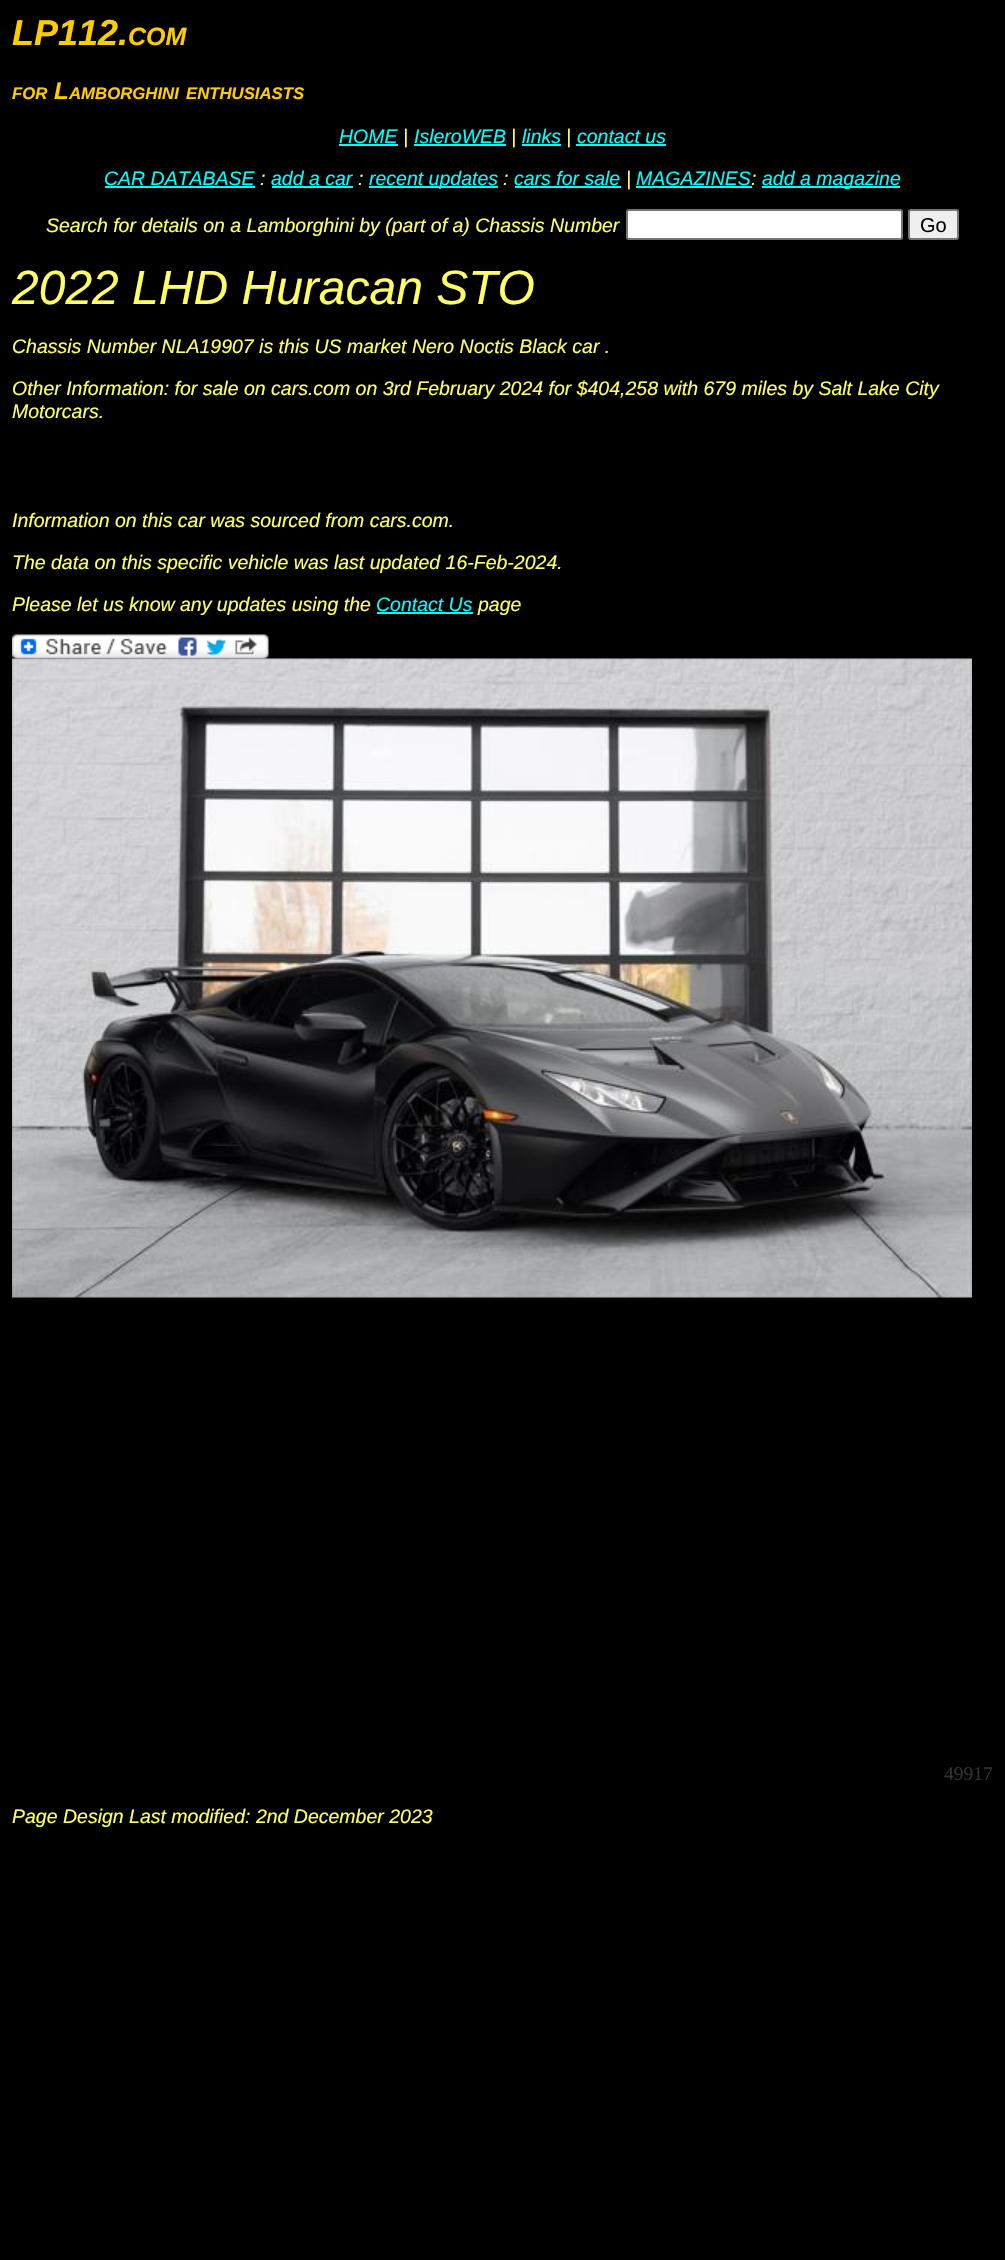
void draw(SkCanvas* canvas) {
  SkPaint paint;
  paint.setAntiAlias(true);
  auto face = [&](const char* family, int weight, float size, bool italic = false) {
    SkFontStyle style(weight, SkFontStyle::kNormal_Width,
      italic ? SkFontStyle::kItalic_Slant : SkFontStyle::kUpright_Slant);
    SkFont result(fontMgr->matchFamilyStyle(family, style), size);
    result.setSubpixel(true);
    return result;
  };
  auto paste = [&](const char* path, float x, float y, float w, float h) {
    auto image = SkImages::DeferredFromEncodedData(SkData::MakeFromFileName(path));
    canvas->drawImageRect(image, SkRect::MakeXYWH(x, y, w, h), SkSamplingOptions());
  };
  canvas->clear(0xff000000);
  {
    const struct { float x, y, w, h; SkColor color; } items[] = {
      {339, 144, 59, 2, 0xff00ffff},
      {414, 144, 92, 2, 0xff00ffff},
      {522, 144, 39, 2, 0xff00ffff},
      {576, 144, 90, 2, 0xff00ffff},
      {105, 186, 150, 2, 0xff00ffff},
      {272, 186, 81, 2, 0xff00ffff},
      {369, 186, 129, 2, 0xff00ffff},
      {515, 186, 106, 2, 0xff00ffff},
      {636, 186, 116, 2, 0xff00ffff},
      {762, 186, 138, 2, 0xff00ffff},
    };
    for (auto [x, y, w, h, color] : items) {
      paint.setColor(color);
      canvas->drawRect(SkRect::MakeXYWH(x, y, w, h), paint);
    }
  }
  paint.setColor(0xffffffff);
  canvas->drawRoundRect(SkRect::MakeXYWH(627, 210, 275, 29), 2, 2, paint);
  paint.setStroke(true);
  paint.setStrokeWidth(2);
  paint.setColor(0xff767676);
  canvas->drawRoundRect(SkRect::MakeXYWH(627, 210, 275, 29), 2, 2, paint);
  paint.setStroke(false);
  paint.setColor(0xffefefef);
  canvas->drawRoundRect(SkRect::MakeXYWH(909, 210, 49, 29), 2, 2, paint);
  paint.setStroke(true);
  paint.setColor(0xff767676);
  canvas->drawRoundRect(SkRect::MakeXYWH(909, 210, 49, 29), 2, 2, paint);
  paint.setStroke(false);
  paint.setColor(0xff00ffff);
  canvas->drawRect(SkRect::MakeXYWH(377, 612, 96, 2), paint);
  paste("img/1.png", 12, 634, 257, 25);
  paste("img/2.png", 12, 658, 960, 640);
  auto f0 = face("Liberation Sans", 700, 36, true);
  paint.setColor(0xffffcc00);
  canvas->drawString("LP112.", 12, 45, f0, paint);
  auto f1 = face("Liberation Sans", 700, 25, true);
  canvas->drawString("COM", 128, 45, f1, paint);
  auto f2 = face("Liberation Sans", 700, 16.75f, true);
  canvas->drawString("FOR", 12, 99, f2, paint);
  auto f3 = face("Liberation Sans", 700, 24, true);
  canvas->drawString("L", 54, 99, f3, paint);
  canvas->drawString("AMBORGHINI", 69, 99, f2, paint);
  canvas->drawString("ENTHUSIASTS", 186, 99, f2, paint);
  auto f4 = face("Liberation Sans", 400, 19.5f, true);
  paint.setColor(0xff00ffff);
  canvas->drawString("HOME", 339, 143, f4, paint);
  paint.setColor(0xffffff66);
  canvas->drawString("|", 403, 143, f4, paint);
  paint.setColor(0xff00ffff);
  canvas->drawString("IsleroWEB", 414, 143, f4, paint);
  paint.setColor(0xffffff66);
  canvas->drawString("|", 511, 143, f4, paint);
  paint.setColor(0xff00ffff);
  canvas->drawString("links", 522, 143, f4, paint);
  paint.setColor(0xffffff66);
  canvas->drawString("|", 566, 143, f4, paint);
  paint.setColor(0xff00ffff);
  canvas->drawString("contact us", 577, 143, f4, paint);
  canvas->drawString("CAR DATABASE", 104, 185, f4, paint);
  paint.setColor(0xffffff66);
  canvas->drawString(":", 260, 185, f4, paint);
  paint.setColor(0xff00ffff);
  canvas->drawString("add a car", 271, 185, f4, paint);
  paint.setColor(0xffffff66);
  canvas->drawString(":", 358, 185, f4, paint);
  paint.setColor(0xff00ffff);
  canvas->drawString("recent updates", 369, 185, f4, paint);
  paint.setColor(0xffffff66);
  canvas->drawString(":", 503, 185, f4, paint);
  paint.setColor(0xff00ffff);
  canvas->drawString("cars for sale", 514, 185, f4, paint);
  paint.setColor(0xffffff66);
  canvas->drawString("|", 626, 185, f4, paint);
  paint.setColor(0xff00ffff);
  canvas->drawString("MAGAZINES", 636, 185, f4, paint);
  paint.setColor(0xffffff66);
  canvas->drawString(":", 751, 185, f4, paint);
  paint.setColor(0xff00ffff);
  canvas->drawString("add a magazine", 762, 185, f4, paint);
  paint.setColor(0xffffff66);
  canvas->drawString("Search for details on a Lamborghini by (part of a) Chassis Number", 46, 232, f4, paint);
  auto f5 = face("Liberation Sans", 400, 20);
  paint.setColor(0xff000000);
  canvas->drawString("Go", 920, 232, f5, paint);
  auto f6 = face("Liberation Sans", 400, 48, true);
  paint.setColor(0xffffff66);
  canvas->drawString("2022 LHD Huracan STO", 12, 304, f6, paint);
  {
    const struct { const char* s; float x, y; } items[] = {
      {"Chassis Number NLA19907 is this US market Nero Noctis Black car .", 12, 353},
      {"Other Information: for sale on cars.com on 3rd February 2024 for $404,258 with 679 miles by Salt Lake City", 12, 395},
      {"Motorcars.", 12, 418},
      {"Information on this car was sourced from cars.com.", 12, 527},
      {"The data on this specific vehicle was last updated 16-Feb-2024.", 12, 569},
      {"Please let us know any updates using the", 12, 611},
    };
    for (auto [s, x, y] : items) {
      canvas->drawString(s, x, y, f4, paint);
    }
  }
  paint.setColor(0xff00ffff);
  canvas->drawString("Contact Us", 376, 611, f4, paint);
  paint.setColor(0xffffff66);
  canvas->drawString("page", 478, 611, f4, paint);
  auto f7 = face("Liberation Serif", 400, 19.5f);
  paint.setColor(0xff333333);
  canvas->drawString("49917", 944, 1780, f7, paint);
  paint.setColor(0xffffff66);
  canvas->drawString("Page Design Last modified: 2nd December 2023", 12, 1823, f4, paint);
}
